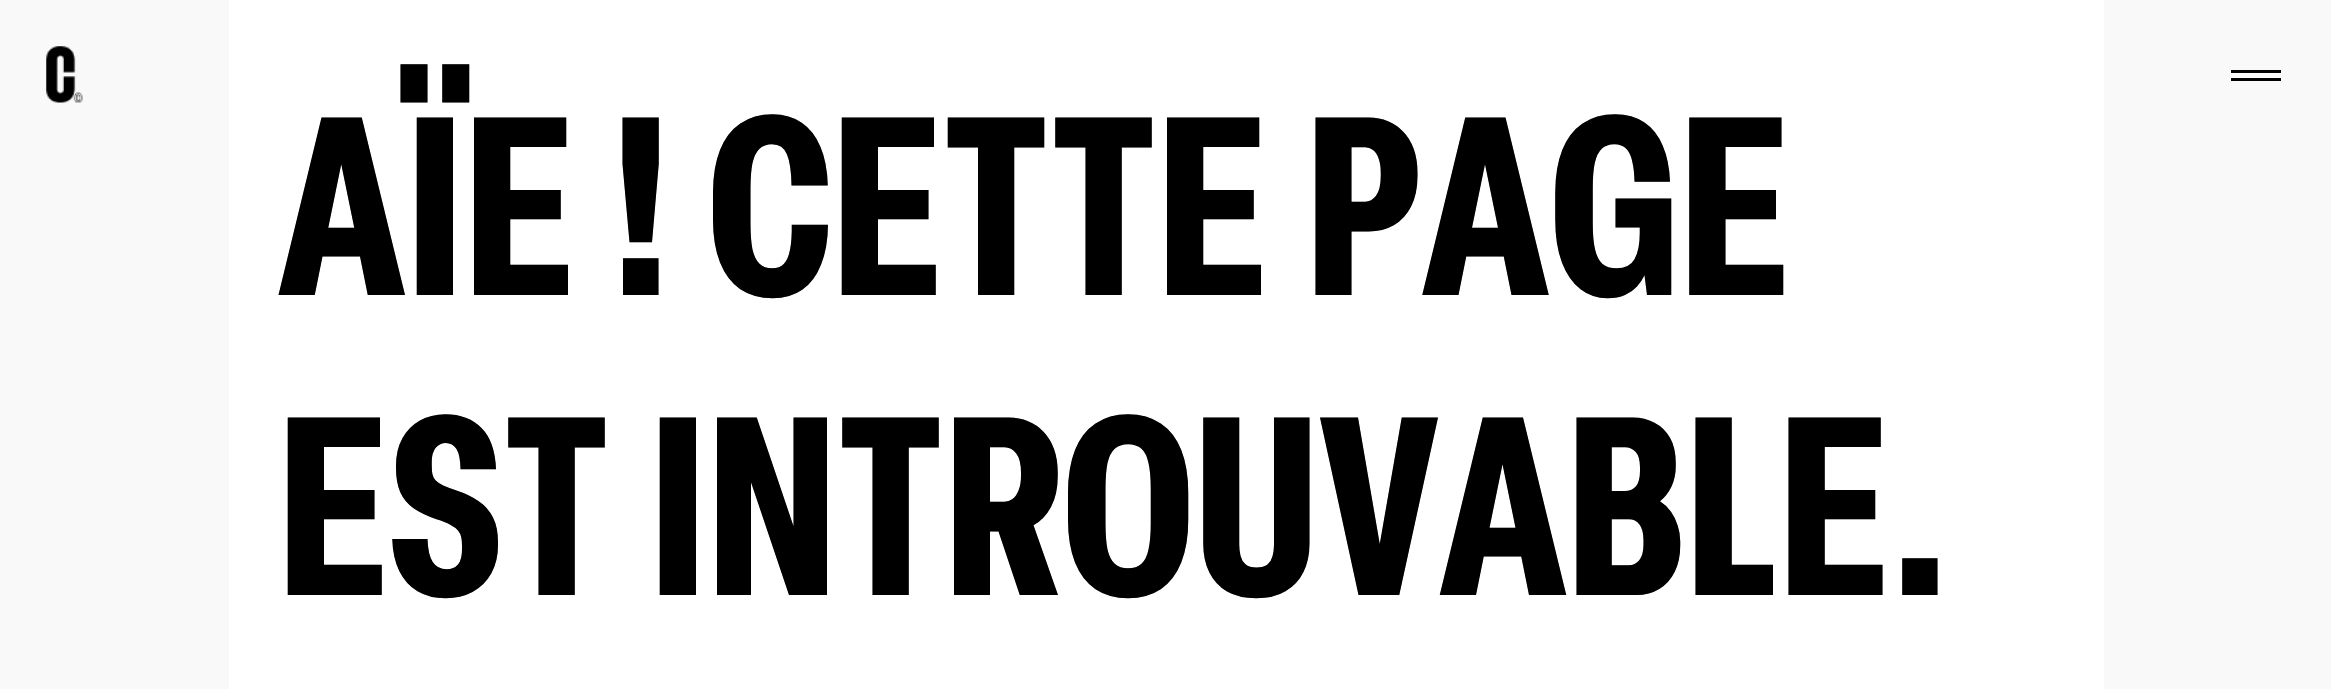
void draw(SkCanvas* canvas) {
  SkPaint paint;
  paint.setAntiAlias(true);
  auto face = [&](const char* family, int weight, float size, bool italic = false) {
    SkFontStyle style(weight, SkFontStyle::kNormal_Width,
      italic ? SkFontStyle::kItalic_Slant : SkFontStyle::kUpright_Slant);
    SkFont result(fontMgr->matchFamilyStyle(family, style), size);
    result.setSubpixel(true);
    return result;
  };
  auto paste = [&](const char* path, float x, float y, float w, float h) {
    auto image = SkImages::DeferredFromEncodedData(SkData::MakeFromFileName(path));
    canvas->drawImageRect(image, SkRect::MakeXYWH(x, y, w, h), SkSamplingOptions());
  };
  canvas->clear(0xfff9f9f9);
  paste("img/1.png", 46, 46, 37, 57);
  {
    const struct { float x, y, w, h; SkColor color; } items[] = {
      {2231, 70, 50, 3, 0xff000000},
      {2231, 78, 50, 3, 0xff000000},
      {229, 0, 1875, 689, 0xffffffff},
    };
    for (auto [x, y, w, h, color] : items) {
      paint.setColor(color);
      canvas->drawRect(SkRect::MakeXYWH(x, y, w, h), paint);
    }
  }
  auto f0 = face("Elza", 700, 250);
  paint.setColor(0xff000000);
  canvas->drawString("AÏE ! CETTE PAGE", 278, 295, f0, paint);
  canvas->drawString("EST INTROUVABLE.", 278, 595, f0, paint);
}
